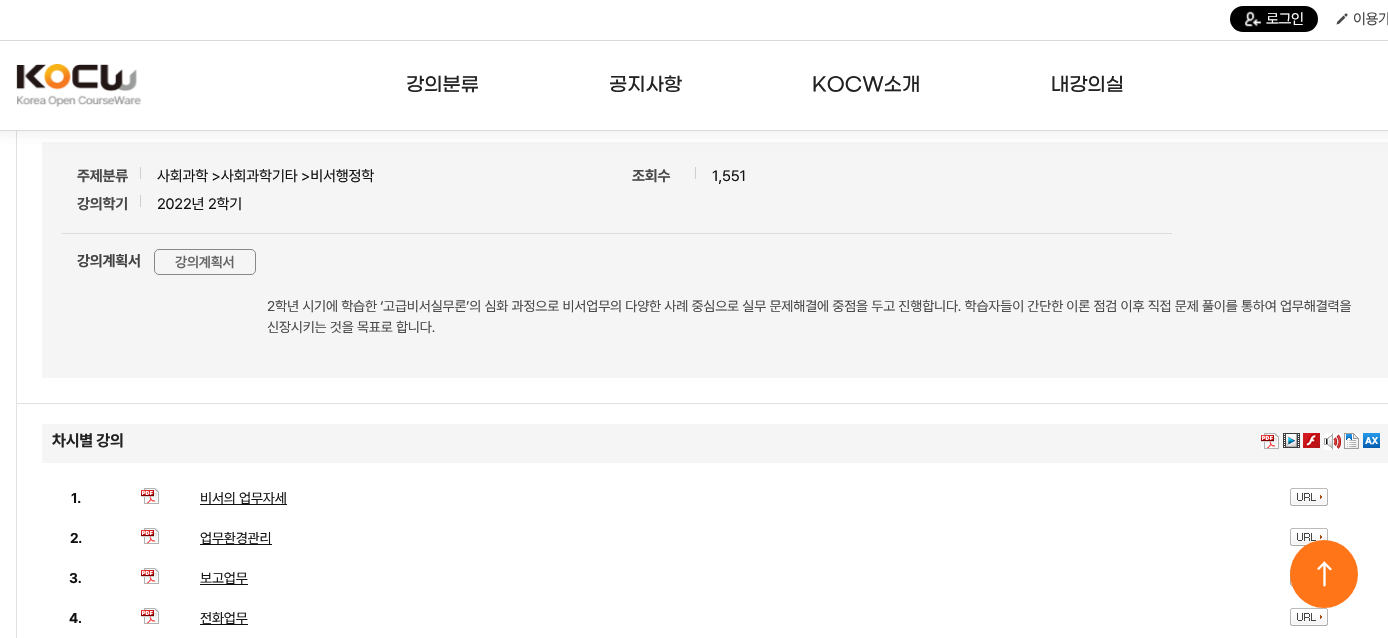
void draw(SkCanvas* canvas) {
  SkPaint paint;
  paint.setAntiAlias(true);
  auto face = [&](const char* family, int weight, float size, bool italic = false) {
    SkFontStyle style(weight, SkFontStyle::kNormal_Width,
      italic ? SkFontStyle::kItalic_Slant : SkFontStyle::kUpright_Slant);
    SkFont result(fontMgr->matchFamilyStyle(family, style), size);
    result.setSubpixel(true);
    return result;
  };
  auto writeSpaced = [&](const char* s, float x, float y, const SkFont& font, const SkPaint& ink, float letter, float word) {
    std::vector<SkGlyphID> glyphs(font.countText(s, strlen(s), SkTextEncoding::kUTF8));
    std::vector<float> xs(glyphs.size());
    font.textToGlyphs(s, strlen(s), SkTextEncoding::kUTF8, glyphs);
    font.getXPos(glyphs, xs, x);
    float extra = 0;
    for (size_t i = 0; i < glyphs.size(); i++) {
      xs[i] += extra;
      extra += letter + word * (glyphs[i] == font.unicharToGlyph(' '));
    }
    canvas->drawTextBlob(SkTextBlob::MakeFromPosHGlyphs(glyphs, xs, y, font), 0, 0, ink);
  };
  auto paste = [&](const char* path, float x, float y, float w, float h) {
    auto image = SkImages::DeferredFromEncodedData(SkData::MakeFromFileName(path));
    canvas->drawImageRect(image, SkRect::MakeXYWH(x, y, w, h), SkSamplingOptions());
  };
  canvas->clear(0xffffffff);
  paint.setStroke(true);
  paint.setStrokeWidth(1);
  paint.setColor(0xffe1e1e1);
  canvas->drawRect(SkRect::MakeXYWH(16.5f, 124.5f, 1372, 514), paint);
  paint.setStroke(false);
  paint.setColor(0xfff5f5f5);
  canvas->drawRect(SkRect::MakeXYWH(42, 142, 1346, 236), paint);
  paint.setColor(0x1a716d69);
  paint.setMaskFilter(SkMaskFilter::MakeBlur(kNormal_SkBlurStyle, 6));
  canvas->drawRect(SkRect::MakeXYWH(-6, 1, 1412, 134), paint);
  paint.setMaskFilter(nullptr);
  paint.setColor(0xffffffff);
  canvas->drawRect(SkRect::MakeXYWH(0, 0, 1388, 130), paint);
  paint.setColor(0xff000000);
  canvas->drawRoundRect(SkRect::MakeXYWH(1230, 6, 88, 26), 13, 13, paint);
  paste("img/1.png", 1244, 11, 17, 16);
  paste("img/2.png", 1336, 13, 12, 12);
  paint.setColor(0xffdadada);
  canvas->drawRect(SkRect::MakeXYWH(0, 40, 1388, 1), paint);
  paste("img/3.png", 16, 64, 125, 43);
  {
    const struct { float x, y, w, h; SkColor color; } items[] = {
      {0, 130, 1388, 1, 0xffdadada},
      {62, 233, 1110, 1, 0xffdcdcdc},
      {140, 167, 1, 12, 0xffced0d0},
      {140, 195, 1, 12, 0xffced0d0},
      {695, 167, 1, 12, 0xffced0d0},
    };
    for (auto [x, y, w, h, color] : items) {
      paint.setColor(color);
      canvas->drawRect(SkRect::MakeXYWH(x, y, w, h), paint);
    }
  }
  paint.setStroke(true);
  paint.setColor(0xff888888);
  canvas->drawRoundRect(SkRect::MakeXYWH(154.5f, 249.5f, 101, 25), 4.5f, 4.5f, paint);
  paint.setStroke(false);
  paint.setColor(0xffe1e1e1);
  canvas->drawRect(SkRect::MakeXYWH(17, 403, 1371, 1), paint);
  paint.setColor(0xfff5f5f5);
  canvas->drawRect(SkRect::MakeXYWH(42, 424, 1346, 39), paint);
  paste("img/4.png", 1261, 433, 18, 16);
  paste("img/5.png", 1283, 433, 17, 15);
  paste("img/6.png", 1303, 433, 17, 15);
  paste("img/7.png", 1324, 433, 17, 17);
  paste("img/8.png", 1344, 433, 15, 16);
  paste("img/9.png", 1363, 433, 17, 15);
  paste("img/4.png", 141, 488, 18, 16);
  paint.setColor(0xff121212);
  canvas->drawRect(SkRect::MakeXYWH(200, 504, 87, 1), paint);
  paste("img/10.png", 1290, 488, 38, 18);
  paste("img/4.png", 141, 528, 18, 16);
  canvas->drawRect(SkRect::MakeXYWH(200, 544, 72, 1), paint);
  paste("img/10.png", 1290, 528, 38, 18);
  paste("img/4.png", 141, 568, 18, 16);
  canvas->drawRect(SkRect::MakeXYWH(200, 584, 48, 1), paint);
  paste("img/11.png", 1290, 568, 3, 18);
  paste("img/4.png", 141, 608, 18, 16);
  canvas->drawRect(SkRect::MakeXYWH(200, 624, 48, 1), paint);
  paste("img/10.png", 1290, 608, 38, 18);
  paint.setColor(0xffff7518);
  canvas->drawCircle(1324, 574, 34, paint);
  paste("img/12.png", 1317, 561, 15, 26);
  auto f0 = face("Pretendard", 400, 15);
  paint.setColor(0xffffffff);
  writeSpaced("로그인", 1266, 24, f0, paint, -0.5f, 0);
  paint.setColor(0xff444444);
  writeSpaced("이용가", 1353, 24, f0, paint, -0.5f, 0);
  auto f1 = face("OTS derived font", 500, 19);
  paint.setColor(0xff222222);
  {
    const struct { const char* s; float x, y; } items[] = {
      {"강의분류", 406, 90},
      {"공지사항", 609, 90},
      {"KOCW소개", 812, 90},
      {"내강의실", 1051, 90},
    };
    for (auto [s, x, y] : items) {
      canvas->drawString(s, x, y, f1, paint);
    }
  }
  auto f2 = face("Pretendard", 700, 15);
  paint.setColor(0xff4a4a4a);
  writeSpaced("주제분류", 77, 181, f2, paint, -0.2f, 0);
  paint.setColor(0xff121212);
  writeSpaced("사회과학 >사회과학기타 >비서행정학", 157, 181, f0, paint, -0.2f, 0);
  paint.setColor(0xff4a4a4a);
  writeSpaced("강의학기", 77, 209, f2, paint, -0.2f, 0);
  paint.setColor(0xff121212);
  writeSpaced("2022년 2학기", 157, 209, f0, paint, -0.2f, 0);
  paint.setColor(0xff4a4a4a);
  writeSpaced("조회수", 632, 181, f2, paint, -0.2f, 0);
  paint.setColor(0xff121212);
  writeSpaced("1,551", 712, 181, f0, paint, -0.2f, 0);
  paint.setColor(0xff444444);
  writeSpaced("강의계획서", 77, 266, f2, paint, -0.2f, 0);
  auto f3 = face("Pretendard", 600, 14);
  paint.setColor(0xff666666);
  writeSpaced("강의계획서", 175, 267, f3, paint, -0.2f, 0);
  auto f4 = face("Pretendard", 400, 14);
  paint.setColor(0xff4a4a4a);
  writeSpaced("2학년 시기에 학습한 ‘고급비서실무론’의 심화 과정으로 비서업무의 다양한 사례 중심으로 실무 문제해결에 중점을 두고 진행합니다. 학습자들이 간단한 이론 점검 이후 직접 문제 풀이를 통하여 업무해결력을", 267, 311, f4, paint, -0.2f, 0);
  writeSpaced("신장시키는 것을 목표로 합니다.", 267, 332, f4, paint, -0.2f, 0);
  auto f5 = face("Pretendard", 700, 16);
  paint.setColor(0xff222222);
  writeSpaced("차시별 강의", 52, 446, f5, paint, -0.2f, 0);
  auto f6 = face("Pretendard", 700, 14);
  paint.setColor(0xff121212);
  writeSpaced("1.", 71, 503, f6, paint, -0.2f, 0);
  writeSpaced("비서의 업무자세", 200, 503, f4, paint, -0.2f, 0);
  writeSpaced("2.", 70, 543, f6, paint, -0.2f, 0);
  writeSpaced("업무환경관리", 200, 543, f4, paint, -0.2f, 0);
  writeSpaced("3.", 69, 583, f6, paint, -0.2f, 0);
  writeSpaced("보고업무", 200, 583, f4, paint, -0.2f, 0);
  writeSpaced("4.", 69, 623, f6, paint, -0.2f, 0);
  writeSpaced("전화업무", 200, 623, f4, paint, -0.2f, 0);
}
